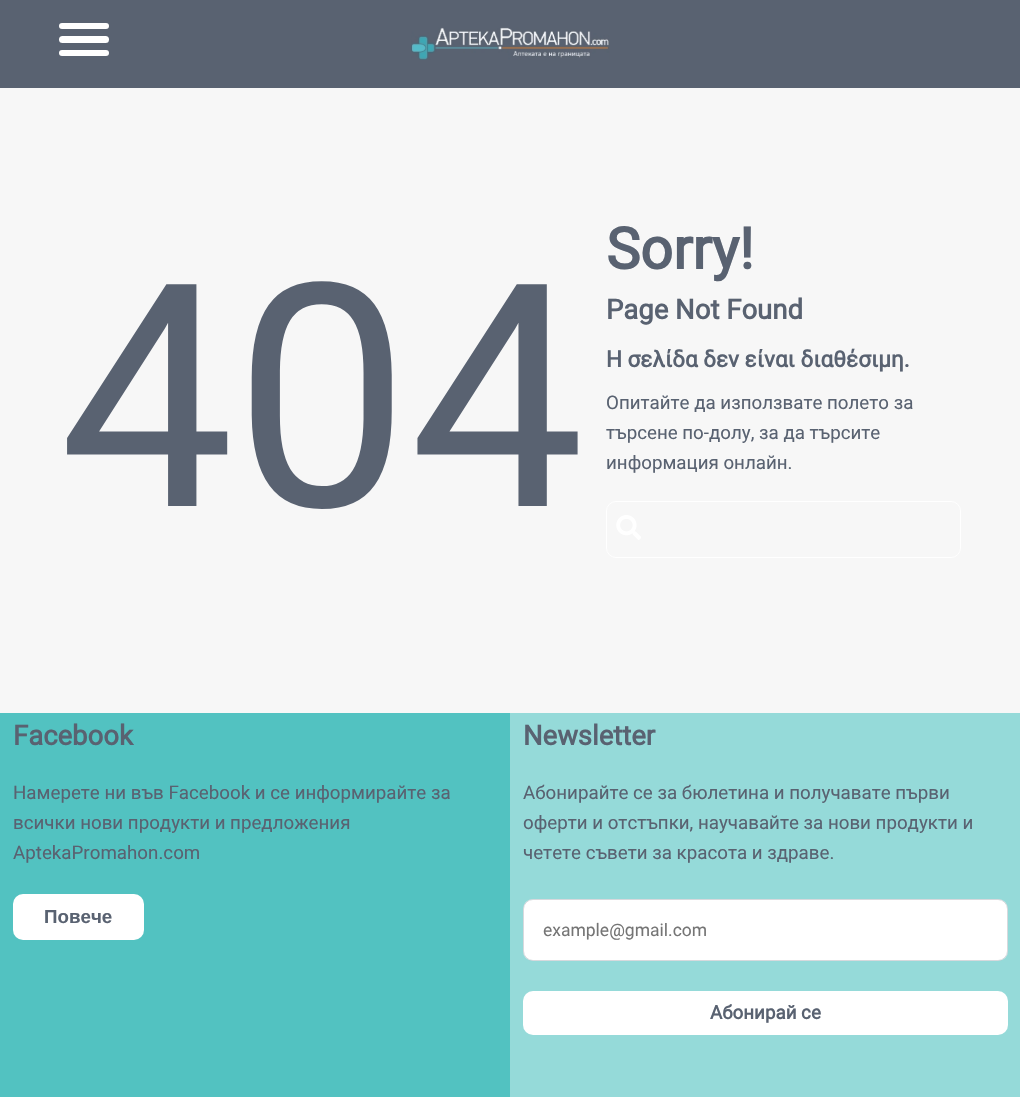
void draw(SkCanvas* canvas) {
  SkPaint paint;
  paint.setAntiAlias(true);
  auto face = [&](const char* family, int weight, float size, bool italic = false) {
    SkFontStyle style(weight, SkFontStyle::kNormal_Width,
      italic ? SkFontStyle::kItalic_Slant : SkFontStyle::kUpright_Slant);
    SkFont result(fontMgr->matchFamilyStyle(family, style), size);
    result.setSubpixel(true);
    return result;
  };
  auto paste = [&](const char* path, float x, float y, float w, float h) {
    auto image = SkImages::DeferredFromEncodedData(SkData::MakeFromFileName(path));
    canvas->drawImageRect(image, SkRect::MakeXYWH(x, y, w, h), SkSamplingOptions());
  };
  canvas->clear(0xfff7f7f7);
  paint.setColor(0xff596271);
  canvas->drawRect(SkRect::MakeXYWH(0, 0, 1020, 88), paint);
  paint.setColor(0xffffffff);
  canvas->drawRoundRect(SkRect::MakeXYWH(59, 23, 50, 6), 3, 3, paint);
  canvas->drawRoundRect(SkRect::MakeXYWH(59, 36, 50, 7), 3.5f, 3.5f, paint);
  canvas->drawRoundRect(SkRect::MakeXYWH(59, 50, 50, 6), 3, 3, paint);
  paste("img/1.png", 411, 27, 199, 33);
  paint.setStroke(true);
  paint.setStrokeWidth(1);
  canvas->drawRoundRect(SkRect::MakeXYWH(606.5f, 501.5f, 354, 56), 9.5f, 9.5f, paint);
  paste("img/2.png", 616, 515, 25, 25);
  paint.setStroke(false);
  paint.setColor(0xff52c2c1);
  canvas->drawRect(SkRect::MakeXYWH(0, 713, 510, 384), paint);
  paint.setColor(0xffffffff);
  canvas->drawRoundRect(SkRect::MakeXYWH(13, 894, 131, 46), 10, 10, paint);
  paint.setColor(0xff95dad9);
  canvas->drawRect(SkRect::MakeXYWH(510, 713, 510, 384), paint);
  paint.setColor(0xffffffff);
  canvas->drawRoundRect(SkRect::MakeXYWH(523, 899, 485, 62), 10, 10, paint);
  paint.setStroke(true);
  paint.setColor(0x3d596271);
  canvas->drawRoundRect(SkRect::MakeXYWH(523.5f, 899.5f, 484, 61), 9.5f, 9.5f, paint);
  paint.setStroke(false);
  paint.setColor(0xffffffff);
  canvas->drawRoundRect(SkRect::MakeXYWH(523, 991, 485, 44), 10, 10, paint);
  auto f0 = face("Roboto", 400, 312);
  paint.setColor(0xff596271);
  canvas->drawString("404", 59, 506, f0, paint);
  auto f1 = face("Roboto", 700, 57.5f);
  canvas->drawString("Sorry!", 606, 269, f1, paint);
  auto f2 = face("Roboto", 700, 27.5f);
  canvas->drawString("Page Not Found", 606, 319, f2, paint);
  auto f3 = face("Roboto", 700, 22.5f);
  canvas->drawString("Η σελίδα δεν είναι διαθέσιμη.", 606, 367, f3, paint);
  auto f4 = face("Roboto", 400, 18.75f);
  {
    const struct { const char* s; float x, y; } items[] = {
      {"Опитайте да използвате полето за", 606, 409},
      {"търсене по-долу, за да търсите", 606, 439},
      {"информация онлайн.", 606, 469},
    };
    for (auto [s, x, y] : items) {
      canvas->drawString(s, x, y, f4, paint);
    }
  }
  canvas->drawString("Facebook", 13, 745, f2, paint);
  {
    const struct { const char* s; float x, y; } items[] = {
      {"Намерете ни във Facebook и се информирайте за", 13, 799},
      {"всички нови продукти и предложения", 13, 829},
      {"AptekaPromahon.com", 13, 859},
    };
    for (auto [s, x, y] : items) {
      canvas->drawString(s, x, y, f4, paint);
    }
  }
  auto f5 = face("Liberation Sans", 700, 18.75f);
  canvas->drawString("Повече", 44, 923, f5, paint);
  canvas->drawString("Newsletter", 523, 745, f2, paint);
  {
    const struct { const char* s; float x, y; } items[] = {
      {"Абонирайте се за бюлетина и получавате първи", 523, 799},
      {"оферти и отстъпки, научавайте за нови продукти и", 523, 829},
      {"четете съвети за красота и здраве.", 523, 859},
    };
    for (auto [s, x, y] : items) {
      canvas->drawString(s, x, y, f4, paint);
    }
  }
  auto f6 = face("Roboto", 400, 17.5f);
  paint.setColor(0xff757575);
  canvas->drawString("example@gmail.com", 543, 936, f6, paint);
  auto f7 = face("Roboto", 700, 18.75f);
  paint.setColor(0xff596271);
  canvas->drawString("Абонирай се", 710, 1019, f7, paint);
}
